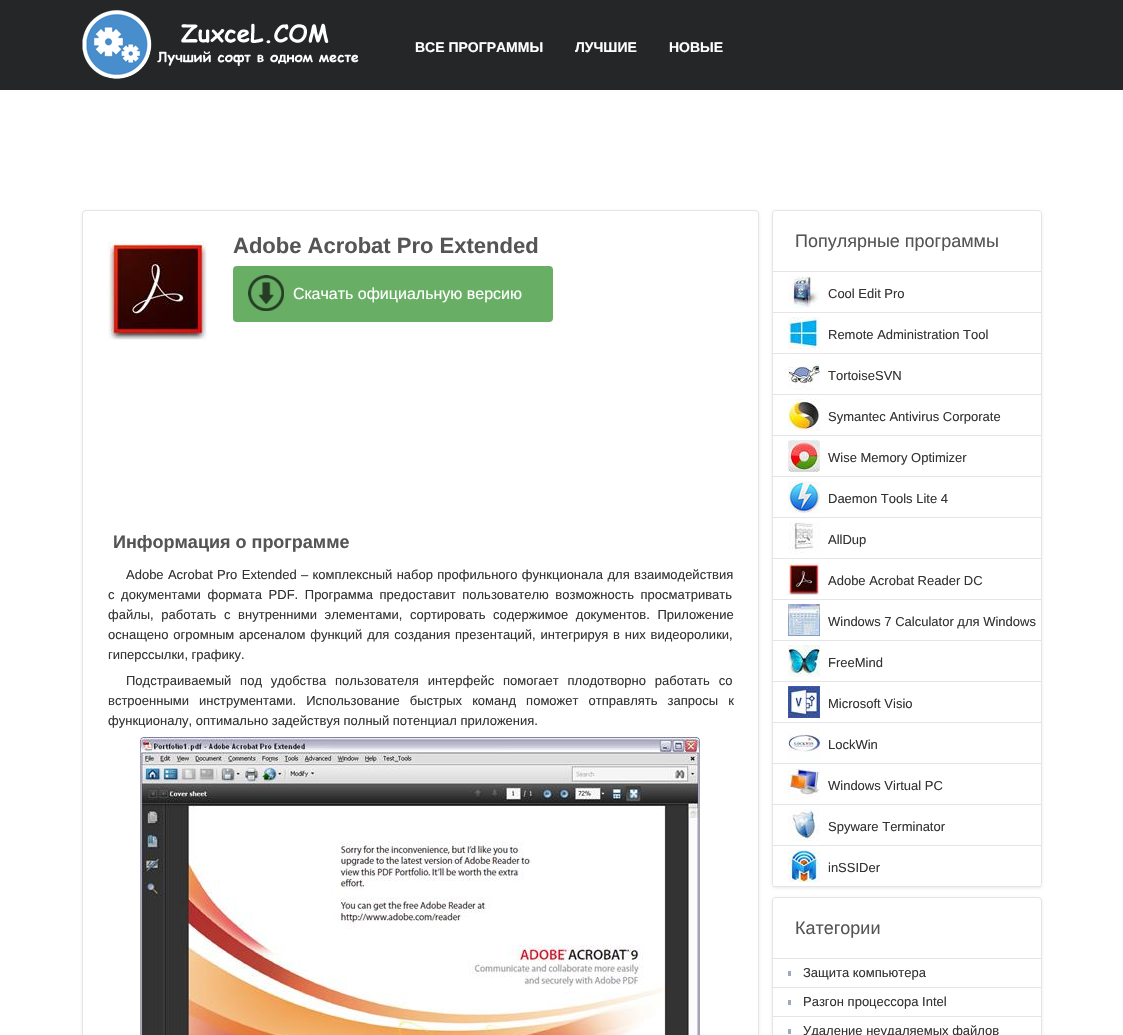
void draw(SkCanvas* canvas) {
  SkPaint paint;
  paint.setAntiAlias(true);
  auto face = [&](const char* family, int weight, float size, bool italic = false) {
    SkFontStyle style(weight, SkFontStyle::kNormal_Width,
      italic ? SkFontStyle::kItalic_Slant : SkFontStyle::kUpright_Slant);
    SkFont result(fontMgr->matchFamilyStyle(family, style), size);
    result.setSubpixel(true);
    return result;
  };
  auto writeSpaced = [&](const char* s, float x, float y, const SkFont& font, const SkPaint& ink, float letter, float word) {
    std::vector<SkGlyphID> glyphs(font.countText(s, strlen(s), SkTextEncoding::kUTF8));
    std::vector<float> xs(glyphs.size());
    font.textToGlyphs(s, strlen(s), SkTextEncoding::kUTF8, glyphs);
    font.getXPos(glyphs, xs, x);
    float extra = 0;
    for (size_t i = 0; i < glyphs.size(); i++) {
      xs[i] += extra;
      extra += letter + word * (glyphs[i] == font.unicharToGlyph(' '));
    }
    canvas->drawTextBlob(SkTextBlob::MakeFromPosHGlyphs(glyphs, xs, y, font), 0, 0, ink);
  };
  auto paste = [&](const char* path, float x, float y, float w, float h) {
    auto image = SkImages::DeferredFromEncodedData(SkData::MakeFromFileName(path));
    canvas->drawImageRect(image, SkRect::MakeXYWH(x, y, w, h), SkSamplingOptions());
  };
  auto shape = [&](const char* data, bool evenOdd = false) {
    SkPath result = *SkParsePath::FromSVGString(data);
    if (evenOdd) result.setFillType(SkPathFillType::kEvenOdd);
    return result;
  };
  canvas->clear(0xffffffff);
  paint.setColor(0xff242628);
  canvas->drawRect(SkRect::MakeXYWH(0, 0, 1123, 90), paint);
  paste("img/1.png", 82, 10, 277, 69);
  paint.setColor(0xffe9e9e9);
  paint.setMaskFilter(SkMaskFilter::MakeBlur(kNormal_SkBlurStyle, 1.5f));
  canvas->drawRoundRect(SkRect::MakeXYWH(82, 211, 677, 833), 4, 4, paint);
  paint.setMaskFilter(nullptr);
  paint.setColor(0xffffffff);
  canvas->drawRoundRect(SkRect::MakeXYWH(82.5f, 210.5f, 676, 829), 3.5f, 3.5f, paint);
  paint.setStroke(true);
  paint.setStrokeWidth(1);
  paint.setColor(0xffe5e5e5);
  canvas->drawRoundRect(SkRect::MakeXYWH(82.5f, 210.5f, 676, 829), 3.5f, 3.5f, paint);
  paste("img/2.png", 108, 241, 99, 99);
  paint.setStroke(false);
  paint.setColor(0xff68ae65);
  canvas->drawRoundRect(SkRect::MakeXYWH(233, 266, 320, 56), 4, 4, paint);
  paste("img/3.png", 248, 275, 36, 36);
  paste("img/4.png", 140, 737, 560, 298);
  paint.setColor(0xffe9e9e9);
  paint.setMaskFilter(SkMaskFilter::MakeBlur(kNormal_SkBlurStyle, 1.5f));
  canvas->drawRoundRect(SkRect::MakeXYWH(772, 211, 270, 677), 4, 4, paint);
  paint.setMaskFilter(nullptr);
  paint.setColor(0xffffffff);
  canvas->drawRoundRect(SkRect::MakeXYWH(772, 210, 270, 677), 4, 4, paint);
  paint.setColor(0xffe5e5e5);
  canvas->drawPath(shape("M776 210H1038C1040 210 1042 212 1042 214V883C1042 885 1040 887 1038 887H776C774 887 772 885 772 883V214C772 212 774 210 776 210ZM776 211H1038C1040 211 1041 212 1041 214V883C1041 885 1040 887 1038 887H776C774 887 773 885 773 883V214C773 212 774 211 776 211Z", true), paint);
  canvas->drawRect(SkRect::MakeXYWH(773, 271, 268, 1), paint);
  canvas->drawRect(SkRect::MakeXYWH(773, 312, 268, 1), paint);
  paste("img/5.png", 788, 276, 32, 32);
  canvas->drawRect(SkRect::MakeXYWH(773, 353, 268, 1), paint);
  paste("img/6.png", 788, 317, 32, 32);
  canvas->drawRect(SkRect::MakeXYWH(773, 394, 268, 1), paint);
  paste("img/7.png", 788, 358, 32, 32);
  canvas->drawRect(SkRect::MakeXYWH(773, 435, 268, 1), paint);
  paste("img/8.png", 788, 399, 32, 32);
  canvas->drawRect(SkRect::MakeXYWH(773, 476, 268, 1), paint);
  paste("img/9.png", 788, 440, 32, 32);
  canvas->drawRect(SkRect::MakeXYWH(773, 517, 268, 1), paint);
  paste("img/10.png", 788, 481, 32, 32);
  canvas->drawRect(SkRect::MakeXYWH(773, 558, 268, 1), paint);
  paste("img/11.png", 789, 522, 31, 32);
  canvas->drawRect(SkRect::MakeXYWH(773, 599, 268, 1), paint);
  paste("img/12.png", 788, 563, 32, 32);
  canvas->drawRect(SkRect::MakeXYWH(773, 640, 268, 1), paint);
  paste("img/13.png", 788, 604, 32, 32);
  canvas->drawRect(SkRect::MakeXYWH(773, 681, 268, 1), paint);
  paste("img/14.png", 788, 645, 32, 32);
  canvas->drawRect(SkRect::MakeXYWH(773, 722, 268, 1), paint);
  paste("img/15.png", 788, 686, 32, 32);
  canvas->drawRect(SkRect::MakeXYWH(773, 763, 268, 1), paint);
  paste("img/16.png", 788, 727, 32, 32);
  canvas->drawRect(SkRect::MakeXYWH(773, 804, 268, 1), paint);
  paste("img/17.png", 788, 768, 32, 32);
  canvas->drawRect(SkRect::MakeXYWH(773, 845, 268, 1), paint);
  paste("img/18.png", 788, 809, 32, 32);
  canvas->drawRect(SkRect::MakeXYWH(773, 886, 268, 1), paint);
  paste("img/19.png", 788, 850, 32, 32);
  paint.setColor(0xffe9e9e9);
  paint.setMaskFilter(SkMaskFilter::MakeBlur(kNormal_SkBlurStyle, 1.5f));
  canvas->drawRoundRect(SkRect::MakeXYWH(772, 898, 270, 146), 4, 4, paint);
  paint.setMaskFilter(nullptr);
  paint.setColor(0xffffffff);
  canvas->drawRoundRect(SkRect::MakeXYWH(772, 897, 270, 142), 4, 4, paint);
  paint.setColor(0xffe5e5e5);
  canvas->drawPath(shape("M776 897H1038C1040 897 1042 899 1042 901V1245C1042 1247 1040 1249 1038 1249H776C774 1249 772 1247 772 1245V901C772 899 774 897 776 897ZM776 898H1038C1040 898 1041 899 1041 901V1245C1041 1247 1040 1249 1038 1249H776C774 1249 773 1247 773 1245V901C773 899 774 898 776 898Z", true), paint);
  {
    const struct { float x, y, w, h; SkColor color; } items[] = {
      {773, 958, 268, 1, 0xffe5e5e5},
      {788, 971, 3, 5, 0xff9aabbc},
      {773, 987, 268, 1, 0xffe5e5e5},
      {788, 1000, 3, 5, 0xff9aabbc},
      {773, 1016, 268, 1, 0xffe5e5e5},
      {788, 1029, 3, 5, 0xff9aabbc},
    };
    for (auto [x, y, w, h, color] : items) {
      paint.setColor(color);
      canvas->drawRect(SkRect::MakeXYWH(x, y, w, h), paint);
    }
  }
  auto f0 = face("Liberation Sans", 700, 14);
  paint.setColor(0xffffffff);
  {
    const struct { const char* s; float x, y; } items[] = {
      {"ВСЕ ПРОГРАММЫ", 415, 52},
      {"ЛУЧШИЕ", 575, 52},
      {"НОВЫЕ", 669, 52},
    };
    for (auto [s, x, y] : items) {
      canvas->drawString(s, x, y, f0, paint);
    }
  }
  auto f1 = face("Liberation Sans", 700, 22);
  paint.setColor(0xff555555);
  canvas->drawString("Adobe Acrobat Pro Extended", 233, 253, f1, paint);
  auto f2 = face("Liberation Sans", 400, 16);
  paint.setColor(0xffffffff);
  canvas->drawString("Скачать официальную версию", 293, 299, f2, paint);
  auto f3 = face("Liberation Sans", 700, 18);
  paint.setColor(0xff555555);
  canvas->drawString("Информация о программе", 113, 548, f3, paint);
  auto f4 = face("Liberation Sans", 400, 13);
  paint.setColor(0xff333333);
  writeSpaced("Adobe Acrobat Pro Extended – комплексный набор профильного функционала для взаимодействия", 126, 579, f4, paint, 0, 0.75f);
  writeSpaced("с документами формата PDF. Программа предоставит пользователю возможность просматривать", 108, 599, f4, paint, 0, 3);
  writeSpaced("файлы, работать с внутренними элементами, сортировать содержимое документов. Приложение", 108, 619, f4, paint, 0, 4);
  writeSpaced("оснащено огромным арсеналом функций для создания презентаций, интегрируя в них видеоролики,", 108, 639, f4, paint, 0, 1.25f);
  canvas->drawString("гиперссылки, графику.", 108, 659, f4, paint);
  writeSpaced("Подстраиваемый под удобства пользователя интерфейс помогает плодотворно работать со", 126, 685, f4, paint, 0, 5.25f);
  writeSpaced("встроенными инструментами. Использование быстрых команд поможет отправлять запросы к", 108, 705, f4, paint, 0, 6.5f);
  canvas->drawString("функционалу, оптимально задействуя полный потенциал приложения.", 108, 725, f4, paint);
  auto f5 = face("Liberation Sans", 400, 18);
  paint.setColor(0xff555555);
  canvas->drawString("Популярные программы", 795, 247, f5, paint);
  paint.setColor(0xff333333);
  {
    const struct { const char* s; float x, y; } items[] = {
      {"Cool Edit Pro", 828, 298},
      {"Remote Administration Tool", 828, 339},
      {"TortoiseSVN", 828, 380},
      {"Symantec Antivirus Corporate", 828, 421},
      {"Wise Memory Optimizer", 828, 462},
      {"Daemon Tools Lite 4", 828, 503},
      {"AllDup", 828, 544},
      {"Adobe Acrobat Reader DC", 828, 585},
      {"Windows 7 Calculator для Windows", 828, 626},
      {"FreeMind", 828, 667},
      {"Microsoft Visio", 828, 708},
      {"LockWin", 828, 749},
      {"Windows Virtual PC", 828, 790},
      {"Spyware Terminator", 828, 831},
      {"inSSIDer", 828, 872},
    };
    for (auto [s, x, y] : items) {
      canvas->drawString(s, x, y, f4, paint);
    }
  }
  paint.setColor(0xff555555);
  canvas->drawString("Категории", 795, 934, f5, paint);
  paint.setColor(0xff333333);
  {
    const struct { const char* s; float x, y; } items[] = {
      {"Защита компьютера", 803, 977},
      {"Разгон процессора Intel", 803, 1006},
      {"Удаление неудаляемых файлов", 803, 1035},
    };
    for (auto [s, x, y] : items) {
      canvas->drawString(s, x, y, f4, paint);
    }
  }
}
